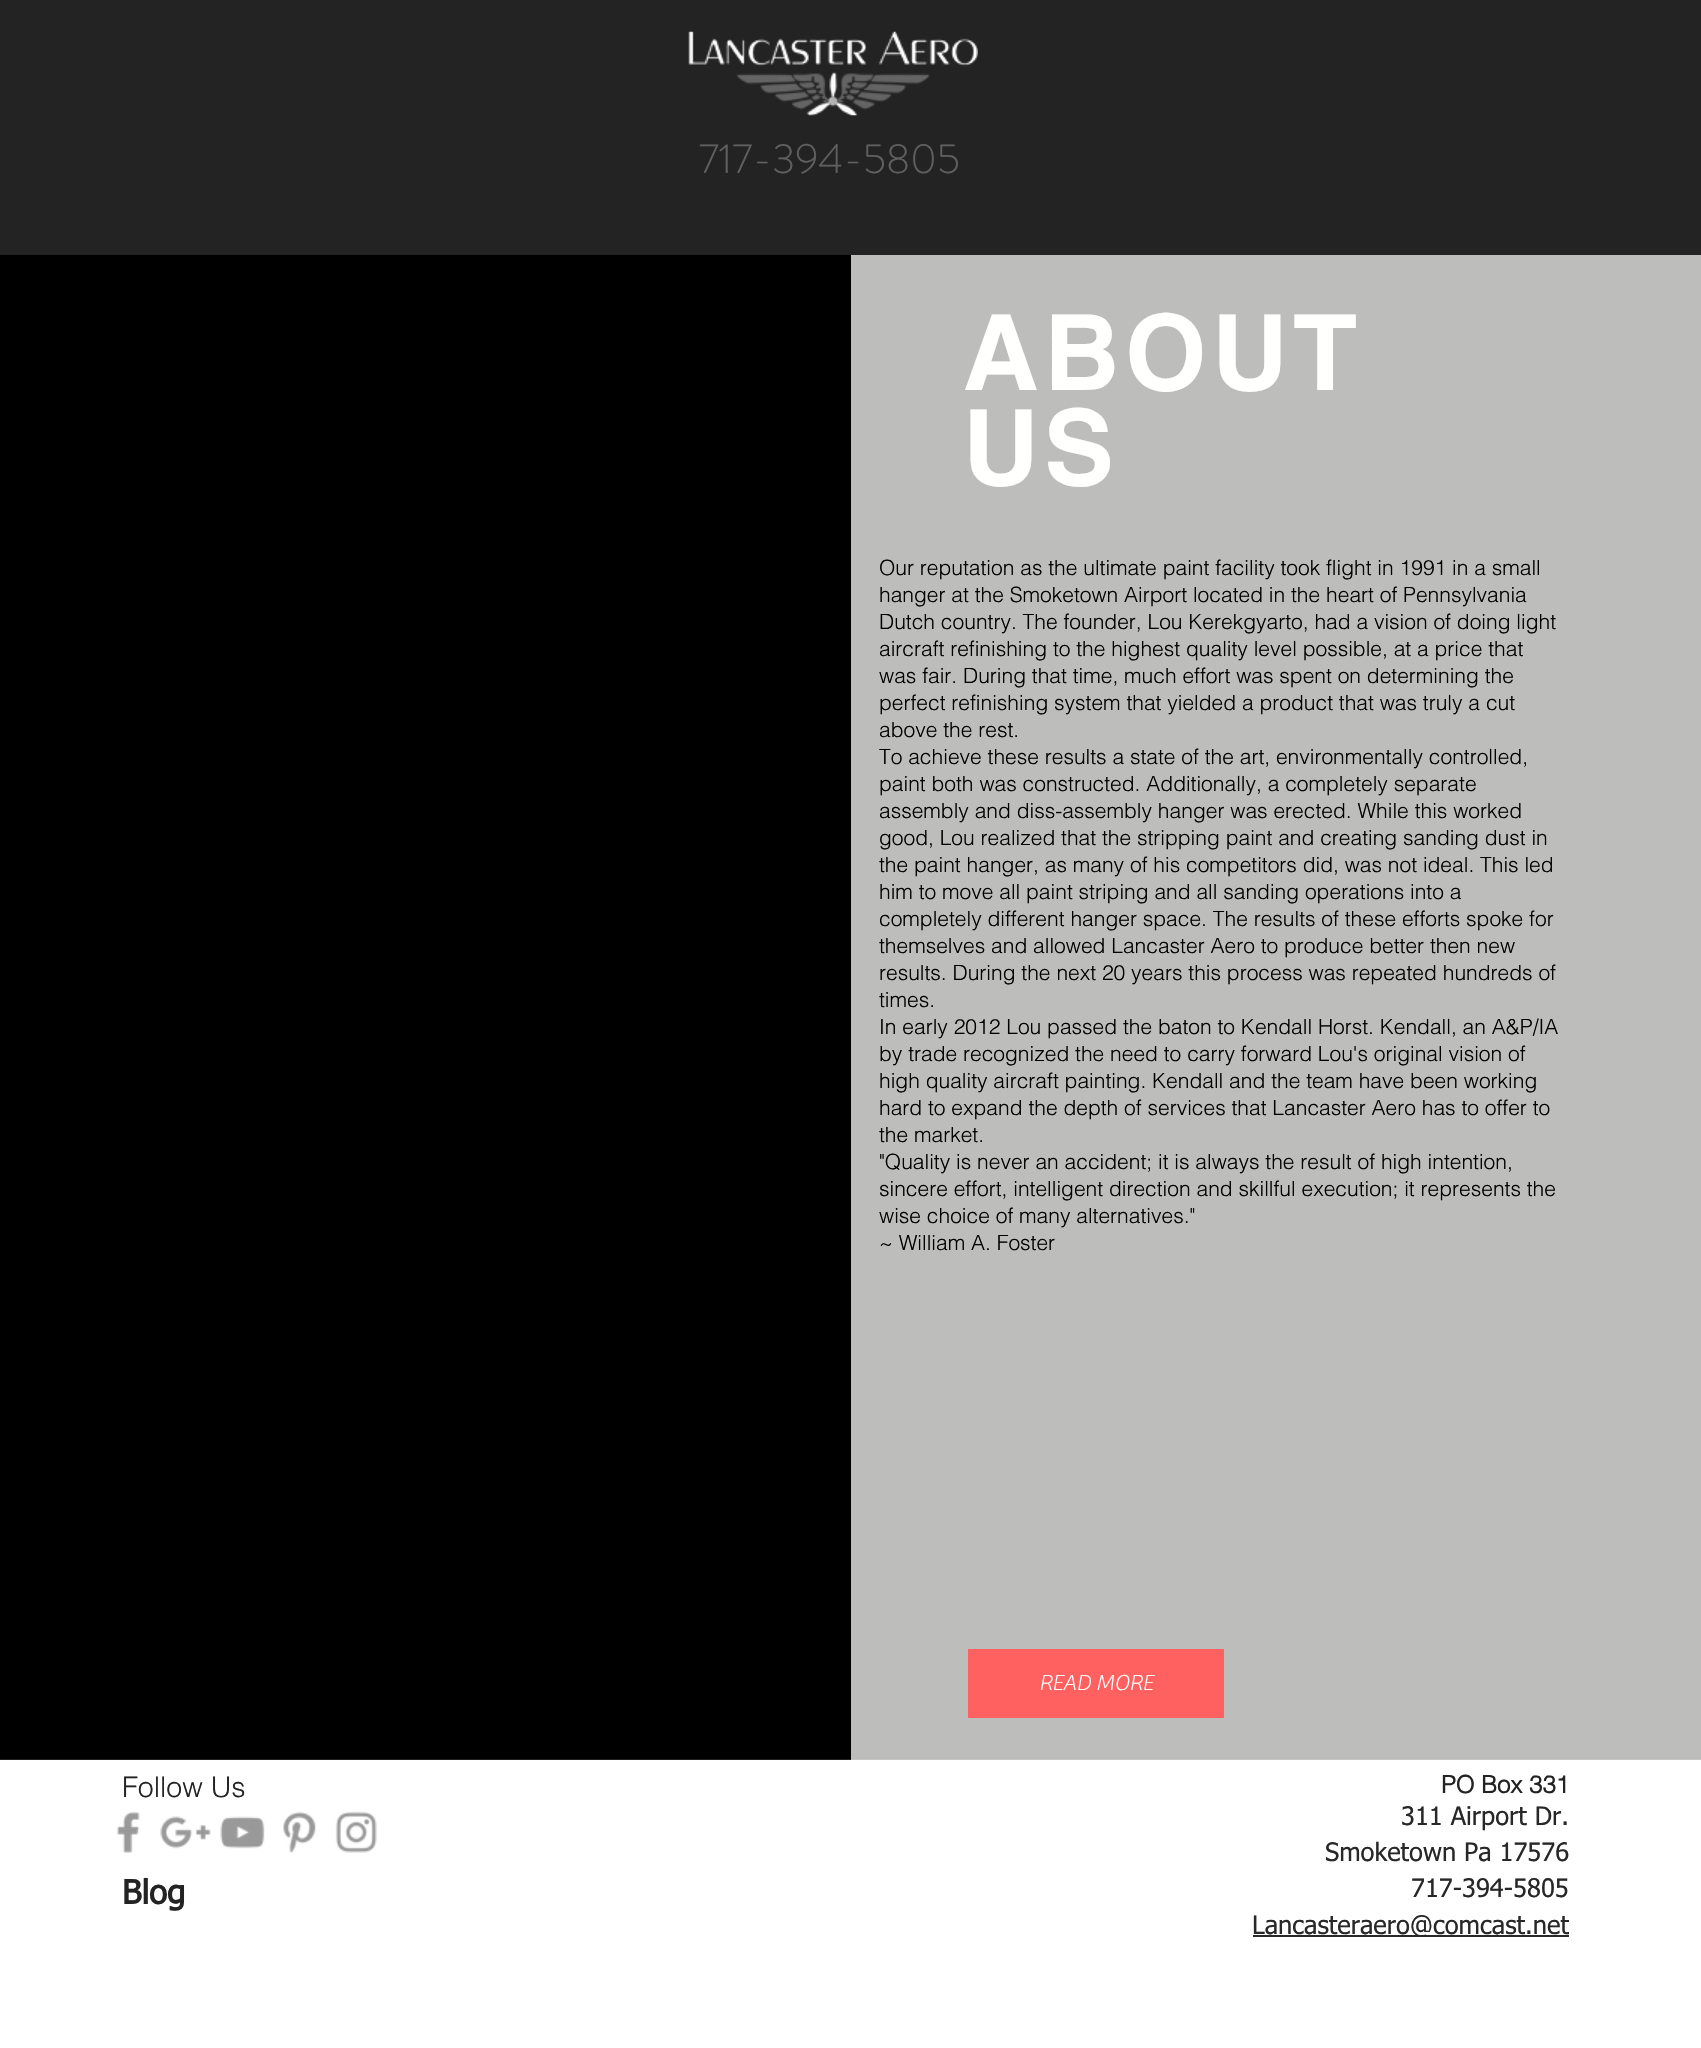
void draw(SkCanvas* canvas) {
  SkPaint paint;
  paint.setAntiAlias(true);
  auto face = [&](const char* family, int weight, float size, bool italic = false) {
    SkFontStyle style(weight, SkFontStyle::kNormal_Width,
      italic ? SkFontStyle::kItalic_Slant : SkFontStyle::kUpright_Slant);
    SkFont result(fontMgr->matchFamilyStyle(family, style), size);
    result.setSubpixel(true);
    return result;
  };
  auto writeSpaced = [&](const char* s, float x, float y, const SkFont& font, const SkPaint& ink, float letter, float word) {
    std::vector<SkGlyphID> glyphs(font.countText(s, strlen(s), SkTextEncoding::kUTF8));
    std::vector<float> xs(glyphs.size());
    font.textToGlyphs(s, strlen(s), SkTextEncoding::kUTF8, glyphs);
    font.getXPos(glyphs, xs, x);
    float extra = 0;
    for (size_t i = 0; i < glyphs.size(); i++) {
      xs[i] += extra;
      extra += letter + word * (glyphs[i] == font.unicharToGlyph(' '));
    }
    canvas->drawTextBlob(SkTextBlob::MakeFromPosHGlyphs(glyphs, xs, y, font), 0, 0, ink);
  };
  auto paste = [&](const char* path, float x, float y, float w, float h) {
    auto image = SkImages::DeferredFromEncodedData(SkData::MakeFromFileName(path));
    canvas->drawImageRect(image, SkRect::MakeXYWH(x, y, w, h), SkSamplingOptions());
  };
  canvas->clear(0xffffffff);
  paint.setColor(0xff242323);
  canvas->drawRect(SkRect::MakeXYWH(0, 0, 1701, 255), paint);
  paste("img/1.png", 688, 31, 290, 85);
  {
    const struct { float x, y, w, h; SkColor color; } items[] = {
      {0, 255, 851, 1504, 0xff000000},
      {0, 1759, 851, 1, 0xff212121},
      {851, 255, 850, 1504, 0xffbdbdbc},
      {851, 1759, 850, 1, 0xffc6c6c5},
      {968, 1649, 256, 69, 0xffff6161},
      {1253, 1935, 316, 2, 0xff292828},
    };
    for (auto [x, y, w, h, color] : items) {
      paint.setColor(color);
      canvas->drawRect(SkRect::MakeXYWH(x, y, w, h), paint);
    }
  }
  paste("img/2.png", 117, 1811, 23, 42);
  paste("img/3.png", 160, 1816, 51, 33);
  paste("img/4.png", 220, 1816, 45, 33);
  paste("img/5.png", 283, 1811, 33, 42);
  paste("img/6.png", 335, 1811, 42, 42);
  auto f0 = face("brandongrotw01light", 300, 42);
  paint.setColor(0xff5f5f5f);
  canvas->drawString("717-394-5805", 699, 173, f0, paint);
  auto f1 = face("helvetica", 700, 105);
  paint.setColor(0xfffffffe);
  writeSpaced("ABOUT", 963, 390, f1, paint, 5.25f, 0);
  writeSpaced("US", 963, 485, f1, paint, 5.25f, 0);
  auto f2 = face("helvetica", 300, 21);
  paint.setColor(0xff000000);
  {
    const struct { const char* s; float x, y; } items[] = {
      {"Our reputation as the ultimate paint facility took flight in 1991 in a small", 879, 575},
      {"hanger at the Smoketown Airport located in the heart of Pennsylvania", 879, 602},
      {"Dutch country. The founder, Lou Kerekgyarto, had a vision of doing light", 879, 629},
      {"aircraft refinishing to the highest quality level possible, at a price that", 879, 656},
      {"was fair. During that time, much effort was spent on determining the", 879, 683},
      {"perfect refinishing system that yielded a product that was truly a cut", 879, 710},
      {"above the rest.", 879, 737},
      {"To achieve these results a state of the art, environmentally controlled,", 879, 764},
      {"paint both was constructed. Additionally, a completely separate", 879, 791},
      {"assembly and diss-assembly hanger was erected. While this worked", 879, 818},
      {"good, Lou realized that the stripping paint and creating sanding dust in", 879, 845},
      {"the paint hanger, as many of his competitors did, was not ideal. This led", 879, 872},
      {"him to move all paint striping and all sanding operations into a", 879, 899},
      {"completely different hanger space. The results of these efforts spoke for", 879, 926},
      {"themselves and allowed Lancaster Aero to produce better then new", 879, 953},
      {"results. During the next 20 years this process was repeated hundreds of", 879, 980},
      {"times.", 879, 1007},
      {"In early 2012 Lou passed the baton to Kendall Horst. Kendall, an A&P/IA", 879, 1034},
      {"by trade recognized the need to carry forward Lou's original vision of", 879, 1061},
      {"high quality aircraft painting. Kendall and the team have been working", 879, 1088},
      {"hard to expand the depth of services that Lancaster Aero has to offer to", 879, 1115},
      {"the market.", 879, 1142},
      {"\"Quality is never an accident; it is always the result of high intention,", 879, 1169},
      {"sincere effort, intelligent direction and skillful execution; it represents the", 879, 1196},
      {"wise choice of many alternatives.\"", 879, 1223},
      {"~ William A. Foster", 879, 1250},
    };
    for (auto [s, x, y] : items) {
      canvas->drawString(s, x, y, f2, paint);
    }
  }
  auto f3 = face("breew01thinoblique", 100, 22.5f);
  paint.setColor(0xfffffffe);
  canvas->drawString("READ MORE", 1039, 1690, f3, paint);
  auto f4 = face("helvetica", 300, 28.5f);
  paint.setColor(0xff232323);
  canvas->drawString("Follow Us", 122, 1797, f4, paint);
  auto f5 = face("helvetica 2", 700, 24);
  canvas->drawString("PO Box 331", 1441, 1793, f5, paint);
  auto f6 = face("tahoma", 400, 25.5f);
  paint.setColor(0xff292828);
  {
    const struct { const char* s; float x, y; } items[] = {
      {"311 Airport Dr.", 1401, 1825},
      {"Smoketown Pa 17576", 1325, 1861},
      {"717-394-5805", 1411, 1897},
      {"Lancasteraero@comcast.net", 1252, 1934},
    };
    for (auto [s, x, y] : items) {
      canvas->drawString(s, x, y, f6, paint);
    }
  }
  auto f7 = face("tahoma", 700, 33);
  paint.setColor(0xff232323);
  canvas->drawString("Blog", 122, 1904, f7, paint);
}
